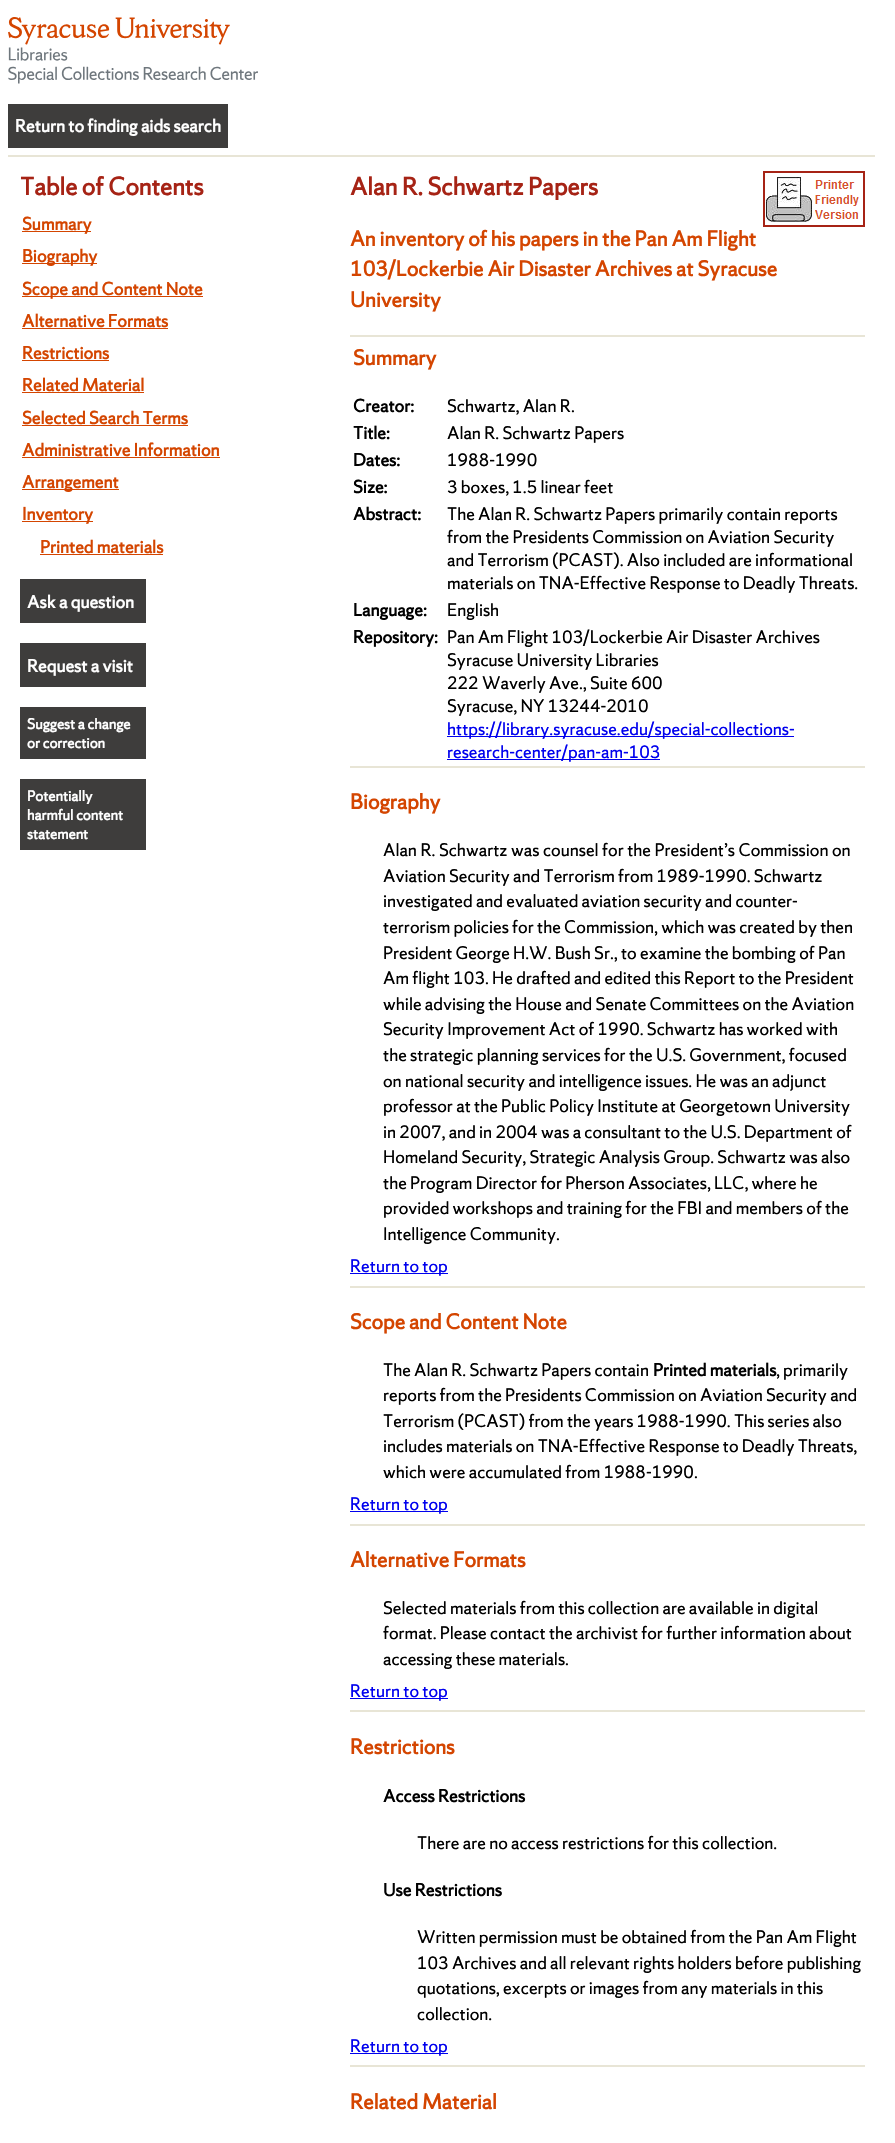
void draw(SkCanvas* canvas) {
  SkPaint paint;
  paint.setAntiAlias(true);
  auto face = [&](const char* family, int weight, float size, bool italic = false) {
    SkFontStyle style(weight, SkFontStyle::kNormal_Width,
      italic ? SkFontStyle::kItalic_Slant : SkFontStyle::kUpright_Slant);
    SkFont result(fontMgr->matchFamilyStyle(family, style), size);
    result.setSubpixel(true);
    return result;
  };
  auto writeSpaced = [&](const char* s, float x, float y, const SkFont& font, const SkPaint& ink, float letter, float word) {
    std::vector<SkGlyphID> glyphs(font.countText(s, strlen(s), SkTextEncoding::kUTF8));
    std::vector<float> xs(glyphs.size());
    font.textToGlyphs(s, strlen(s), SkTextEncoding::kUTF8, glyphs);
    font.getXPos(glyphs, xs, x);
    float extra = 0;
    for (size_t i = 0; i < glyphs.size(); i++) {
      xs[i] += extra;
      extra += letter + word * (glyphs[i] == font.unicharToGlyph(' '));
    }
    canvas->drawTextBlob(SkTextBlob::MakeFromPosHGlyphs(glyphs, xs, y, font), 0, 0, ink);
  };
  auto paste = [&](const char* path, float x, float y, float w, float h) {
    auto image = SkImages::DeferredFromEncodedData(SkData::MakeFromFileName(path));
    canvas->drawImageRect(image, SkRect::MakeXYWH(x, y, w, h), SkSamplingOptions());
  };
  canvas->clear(0xffffffff);
  paint.setColor(0xffe8e5d6);
  canvas->drawRect(SkRect::MakeXYWH(8, 155, 867, 2), paint);
  paste("img/1.png", 8, 17, 250, 67);
  {
    const struct { float x, y, w, h; SkColor color; } items[] = {
      {8, 104, 220, 44, 0xff3e3d3c},
      {22, 231, 69, 1, 0xffd44500},
      {22, 263, 75, 1, 0xffd44500},
      {22, 296, 181, 1, 0xffd44500},
      {22, 328, 146, 1, 0xffd44500},
      {22, 360, 87, 1, 0xffd44500},
      {22, 392, 122, 1, 0xffd44500},
      {22, 425, 166, 1, 0xffd44500},
      {22, 457, 198, 1, 0xffd44500},
      {22, 489, 97, 1, 0xffd44500},
      {22, 521, 71, 1, 0xffd44500},
      {40, 554, 123, 1, 0xffd44500},
      {20, 579, 126, 44, 0xff3e3d3c},
      {20, 643, 126, 44, 0xff3e3d3c},
      {20, 707, 126, 52, 0xff3e3d3c},
      {20, 779, 126, 71, 0xff3e3d3c},
      {350, 335, 515, 2, 0xffe8e5d6},
    };
    for (auto [x, y, w, h, color] : items) {
      paint.setColor(color);
      canvas->drawRect(SkRect::MakeXYWH(x, y, w, h), paint);
    }
  }
  paste("img/2.png", 763, 171, 102, 56);
  {
    const struct { float x, y, w, h; SkColor color; } items[] = {
      {350, 766, 515, 2, 0xffe8e5d6},
      {447, 736, 347, 1, 0xff0000ee},
      {447, 759, 213, 1, 0xff0000ee},
      {350, 1286, 515, 2, 0xffe8e5d6},
      {350, 1273, 98, 1, 0xff0000ee},
      {350, 1524, 515, 2, 0xffe8e5d6},
      {350, 1511, 98, 1, 0xff0000ee},
      {350, 1710, 515, 2, 0xffe8e5d6},
      {350, 1698, 98, 1, 0xff0000ee},
      {350, 2065, 515, 2, 0xffe8e5d6},
      {350, 2053, 98, 1, 0xff0000ee},
    };
    for (auto [x, y, w, h, color] : items) {
      paint.setColor(color);
      canvas->drawRect(SkRect::MakeXYWH(x, y, w, h), paint);
    }
  }
  auto f0 = face("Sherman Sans", 700, 16);
  paint.setColor(0xffffffff);
  canvas->drawString("Return to finding aids search", 15, 132, f0, paint);
  auto f1 = face("Sherman Sans", 700, 22.4f);
  paint.setColor(0xffa62315);
  canvas->drawString("Table of Contents", 20, 195, f1, paint);
  paint.setColor(0xffd44500);
  {
    const struct { const char* s; float x, y; } items[] = {
      {"Summary", 22, 230},
      {"Biography", 22, 262},
      {"Scope and Content Note", 22, 295},
      {"Alternative Formats", 22, 327},
      {"Restrictions", 22, 359},
      {"Related Material", 22, 391},
      {"Selected Search Terms", 22, 424},
      {"Administrative Information", 22, 456},
      {"Arrangement", 22, 488},
      {"Inventory", 22, 520},
      {"Printed materials", 40, 553},
    };
    for (auto [s, x, y] : items) {
      canvas->drawString(s, x, y, f0, paint);
    }
  }
  paint.setColor(0xffffffff);
  canvas->drawString("Ask a question", 27, 608, f0, paint);
  canvas->drawString("Request a visit", 27, 672, f0, paint);
  auto f2 = face("Sherman Sans", 700, 13.25f);
  {
    const struct { const char* s; float x, y; } items[] = {
      {"Suggest a change", 27, 729},
      {"or correction", 27, 748},
      {"Potentially", 27, 801},
      {"harmful content", 27, 820},
      {"statement", 27, 839},
    };
    for (auto [s, x, y] : items) {
      canvas->drawString(s, x, y, f2, paint);
    }
  }
  paint.setColor(0xffa62315);
  canvas->drawString("Alan R. Schwartz Papers", 350, 195, f1, paint);
  auto f3 = face("Sherman Sans", 700, 19.2f);
  paint.setColor(0xffd44500);
  {
    const struct { const char* s; float x, y; } items[] = {
      {"An inventory of his papers in the Pan Am Flight", 350, 246},
      {"103/Lockerbie Air Disaster Archives at Syracuse", 350, 276},
      {"University", 350, 307},
      {"Summary", 353, 365},
    };
    for (auto [s, x, y] : items) {
      canvas->drawString(s, x, y, f3, paint);
    }
  }
  paint.setColor(0xff000000);
  canvas->drawString("Creator:", 353, 412, f0, paint);
  auto f4 = face("Sherman Sans", 400, 16);
  canvas->drawString("Schwartz, Alan R.", 447, 412, f4, paint);
  canvas->drawString("Title:", 353, 439, f0, paint);
  canvas->drawString("Alan R. Schwartz Papers", 447, 439, f4, paint);
  canvas->drawString("Dates:", 353, 466, f0, paint);
  canvas->drawString("1988-1990", 447, 466, f4, paint);
  canvas->drawString("Size:", 353, 493, f0, paint);
  canvas->drawString("3 boxes, 1.5 linear feet", 447, 493, f4, paint);
  canvas->drawString("Abstract:", 353, 520, f0, paint);
  {
    const struct { const char* s; float x, y; } items[] = {
      {"The Alan R. Schwartz Papers primarily contain reports", 447, 520},
      {"from the Presidents Commission on Aviation Security", 447, 543},
      {"and Terrorism (PCAST). Also included are informational", 447, 566},
      {"materials on TNA-Effective Response to Deadly Threats.", 447, 589},
    };
    for (auto [s, x, y] : items) {
      canvas->drawString(s, x, y, f4, paint);
    }
  }
  canvas->drawString("Language:", 353, 616, f0, paint);
  canvas->drawString("English", 447, 616, f4, paint);
  canvas->drawString("Repository:", 353, 643, f0, paint);
  {
    const struct { const char* s; float x, y; } items[] = {
      {"Pan Am Flight 103/Lockerbie Air Disaster Archives", 447, 643},
      {"Syracuse University Libraries", 447, 666},
      {"222 Waverly Ave., Suite 600", 447, 689},
      {"Syracuse, NY 13244-2010", 447, 712},
    };
    for (auto [s, x, y] : items) {
      canvas->drawString(s, x, y, f4, paint);
    }
  }
  paint.setColor(0xff0000ee);
  canvas->drawString("https://library.syracuse.edu/special-collections-", 447, 735, f4, paint);
  canvas->drawString("research-center/pan-am-103", 447, 758, f4, paint);
  paint.setColor(0xffd44500);
  canvas->drawString("Biography", 350, 809, f3, paint);
  paint.setColor(0xff000000);
  writeSpaced("Alan R. Schwartz was counsel for the President’s Commission on", 383, 856, f4, paint, 0, 0.25f);
  {
    const struct { const char* s; float x, y; } items[] = {
      {"Aviation Security and Terrorism from 1989-1990. Schwartz", 383, 882},
      {"investigated and evaluated aviation security and counter-", 383, 907},
      {"terrorism policies for the Commission, which was created by then", 383, 933},
      {"President George H.W. Bush Sr., to examine the bombing of Pan", 383, 959},
      {"Am flight 103. He drafted and edited this Report to the President", 383, 984},
      {"while advising the House and Senate Committees on the Aviation", 383, 1010},
      {"Security Improvement Act of 1990. Schwartz has worked with", 383, 1035},
      {"the strategic planning services for the U.S. Government, focused", 383, 1061},
      {"on national security and intelligence issues. He was an adjunct", 383, 1087},
      {"professor at the Public Policy Institute at Georgetown University", 383, 1112},
      {"in 2007, and in 2004 was a consultant to the U.S. Department of", 383, 1138},
      {"Homeland Security, Strategic Analysis Group. Schwartz was also", 383, 1163},
      {"the Program Director for Pherson Associates, LLC, where he", 383, 1189},
      {"provided workshops and training for the FBI and members of the", 383, 1214},
      {"Intelligence Community.", 383, 1240},
    };
    for (auto [s, x, y] : items) {
      canvas->drawString(s, x, y, f4, paint);
    }
  }
  paint.setColor(0xff0000ee);
  canvas->drawString("Return to top", 350, 1272, f4, paint);
  paint.setColor(0xffd44500);
  canvas->drawString("Scope and Content Note", 350, 1329, f3, paint);
  paint.setColor(0xff000000);
  canvas->drawString("The Alan R. Schwartz Papers contain", 383, 1376, f4, paint);
  canvas->drawString("Printed materials", 653, 1376, f0, paint);
  {
    const struct { const char* s; float x, y; } items[] = {
      {", primarily", 776, 1376},
      {"reports from the Presidents Commission on Aviation Security and", 383, 1401},
      {"Terrorism (PCAST) from the years 1988-1990. This series also", 383, 1427},
      {"includes materials on TNA-Effective Response to Deadly Threats,", 383, 1452},
      {"which were accumulated from 1988-1990.", 383, 1478},
    };
    for (auto [s, x, y] : items) {
      canvas->drawString(s, x, y, f4, paint);
    }
  }
  paint.setColor(0xff0000ee);
  canvas->drawString("Return to top", 350, 1510, f4, paint);
  paint.setColor(0xffd44500);
  canvas->drawString("Alternative Formats", 350, 1567, f3, paint);
  paint.setColor(0xff000000);
  {
    const struct { const char* s; float x, y; } items[] = {
      {"Selected materials from this collection are available in digital", 383, 1614},
      {"format. Please contact the archivist for further information about", 383, 1639},
      {"accessing these materials.", 383, 1665},
    };
    for (auto [s, x, y] : items) {
      canvas->drawString(s, x, y, f4, paint);
    }
  }
  paint.setColor(0xff0000ee);
  canvas->drawString("Return to top", 350, 1697, f4, paint);
  paint.setColor(0xffd44500);
  canvas->drawString("Restrictions", 350, 1754, f3, paint);
  paint.setColor(0xff000000);
  canvas->drawString("Access Restrictions", 383, 1802, f0, paint);
  canvas->drawString("There are no access restrictions for this collection.", 417, 1849, f4, paint);
  canvas->drawString("Use Restrictions", 383, 1896, f0, paint);
  {
    const struct { const char* s; float x, y; } items[] = {
      {"Written permission must be obtained from the Pan Am Flight", 417, 1943},
      {"103 Archives and all relevant rights holders before publishing", 417, 1969},
      {"quotations, excerpts or images from any materials in this", 417, 1994},
      {"collection.", 417, 2020},
    };
    for (auto [s, x, y] : items) {
      canvas->drawString(s, x, y, f4, paint);
    }
  }
  paint.setColor(0xff0000ee);
  canvas->drawString("Return to top", 350, 2052, f4, paint);
  paint.setColor(0xffd44500);
  canvas->drawString("Related Material", 350, 2109, f3, paint);
}
